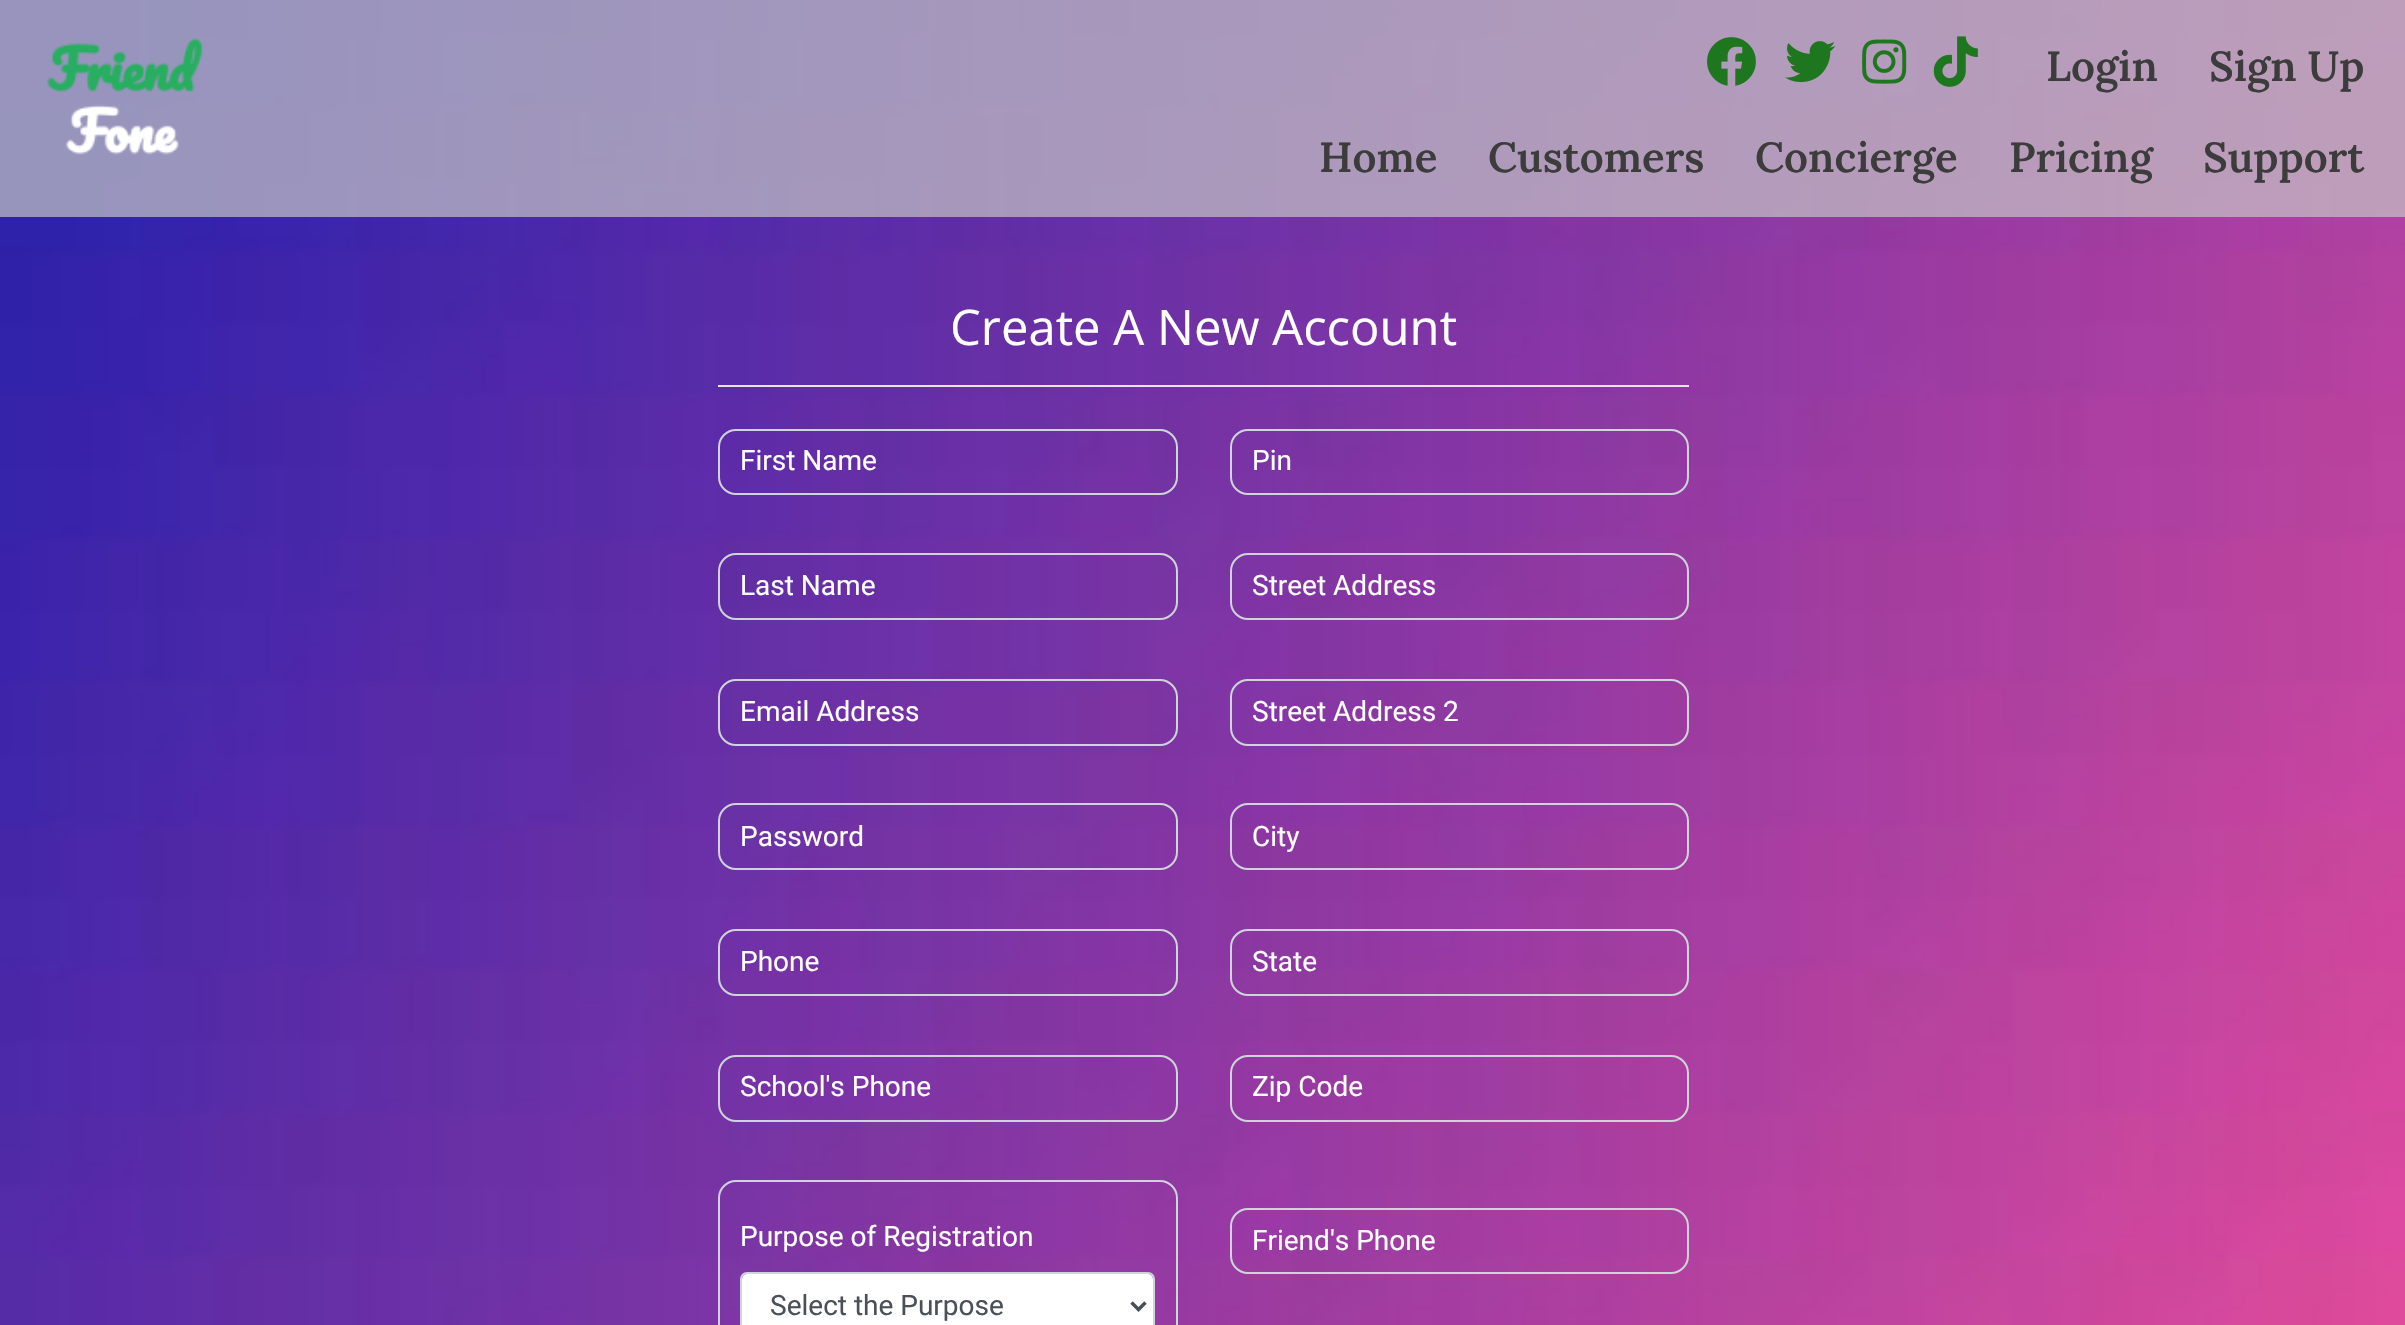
void draw(SkCanvas* canvas) {
  SkPaint paint;
  paint.setAntiAlias(true);
  auto face = [&](const char* family, int weight, float size, bool italic = false) {
    SkFontStyle style(weight, SkFontStyle::kNormal_Width,
      italic ? SkFontStyle::kItalic_Slant : SkFontStyle::kUpright_Slant);
    SkFont result(fontMgr->matchFamilyStyle(family, style), size);
    result.setSubpixel(true);
    return result;
  };
  auto paste = [&](const char* path, float x, float y, float w, float h) {
    auto image = SkImages::DeferredFromEncodedData(SkData::MakeFromFileName(path));
    canvas->drawImageRect(image, SkRect::MakeXYWH(x, y, w, h), SkSamplingOptions());
  };
  auto shape = [&](const char* data, bool evenOdd = false) {
    SkPath result = *SkParsePath::FromSVGString(data);
    if (evenOdd) result.setFillType(SkPathFillType::kEvenOdd);
    return result;
  };
  canvas->clear(0xffffffff);
  paste("img/1.png", 0, 0, 2405, 1325);
  paint.setColor(0xb3c4c4c4);
  canvas->drawRect(SkRect::MakeXYWH(0, 0, 2405, 217), paint);
  paste("img/2.png", 47, 38, 157, 117);
  paste("img/3.png", 1707, 37, 49, 49);
  paste("img/4.png", 1785, 41, 51, 42);
  paste("img/5.png", 1862, 39, 45, 45);
  paste("img/6.png", 1933, 36, 45, 51);
  paint.setColor(0xffe6e6e6);
  canvas->drawRect(SkRect::MakeXYWH(718, 385, 971, 2), paint);
  paste("img/7.png", 720, 431, 456, 62);
  paint.setStroke(true);
  paint.setStrokeWidth(2);
  paint.setColor(0xffced4da);
  canvas->drawRoundRect(SkRect::MakeXYWH(719, 430, 458, 64), 17, 17, paint);
  paste("img/8.png", 720, 555, 456, 63);
  canvas->drawRoundRect(SkRect::MakeXYWH(719, 554, 458, 65), 17, 17, paint);
  paste("img/9.png", 720, 681, 456, 63);
  canvas->drawRoundRect(SkRect::MakeXYWH(719, 680, 458, 65), 17, 17, paint);
  paste("img/10.png", 720, 805, 456, 63);
  canvas->drawRoundRect(SkRect::MakeXYWH(719, 804, 458, 65), 17, 17, paint);
  paste("img/11.png", 720, 931, 456, 63);
  canvas->drawRoundRect(SkRect::MakeXYWH(719, 930, 458, 65), 17, 17, paint);
  paste("img/12.png", 720, 1057, 456, 63);
  canvas->drawRoundRect(SkRect::MakeXYWH(719, 1056, 458, 65), 17, 17, paint);
  canvas->drawRoundRect(SkRect::MakeXYWH(719, 1181, 458, 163), 17, 17, paint);
  paint.setStroke(false);
  paint.setColor(0xffffffff);
  canvas->drawRoundRect(SkRect::MakeXYWH(742, 1274, 411, 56), 5, 5, paint);
  paint.setStroke(true);
  paint.setColor(0xffced4da);
  canvas->drawRoundRect(SkRect::MakeXYWH(741, 1273, 413, 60), 6, 6, paint);
  paint.setStrokeWidth(3.5f);
  paint.setColor(0xff495057);
  canvas->drawPath(shape("M1131.5 1302.5L1138.5 1309.5L1145.5 1302.5"), paint);
  paste("img/13.png", 1232, 431, 455, 62);
  paint.setStrokeWidth(2);
  paint.setColor(0xffced4da);
  canvas->drawRoundRect(SkRect::MakeXYWH(1231, 430, 457, 64), 17, 17, paint);
  paste("img/14.png", 1232, 555, 455, 63);
  canvas->drawRoundRect(SkRect::MakeXYWH(1231, 554, 457, 65), 17, 17, paint);
  paste("img/15.png", 1232, 681, 455, 63);
  canvas->drawRoundRect(SkRect::MakeXYWH(1231, 680, 457, 65), 17, 17, paint);
  paste("img/16.png", 1232, 805, 455, 63);
  canvas->drawRoundRect(SkRect::MakeXYWH(1231, 804, 457, 65), 17, 17, paint);
  paste("img/17.png", 1232, 931, 455, 63);
  canvas->drawRoundRect(SkRect::MakeXYWH(1231, 930, 457, 65), 17, 17, paint);
  paste("img/18.png", 1232, 1057, 455, 63);
  canvas->drawRoundRect(SkRect::MakeXYWH(1231, 1056, 457, 65), 17, 17, paint);
  paste("img/19.png", 1232, 1210, 455, 62);
  canvas->drawRoundRect(SkRect::MakeXYWH(1231, 1209, 457, 64), 17, 17, paint);
  auto f0 = face("Lora", 600, 42);
  paint.setStroke(false);
  paint.setColor(0xff3c3c3c);
  {
    const struct { const char* s; float x, y; } items[] = {
      {"Login", 2046, 81},
      {"Sign Up", 2209, 81},
      {"Home", 1319, 172},
      {"Customers", 1488, 172},
      {"Concierge", 1755, 172},
      {"Pricing", 2009, 172},
      {"Support", 2203, 172},
    };
    for (auto [s, x, y] : items) {
      canvas->drawString(s, x, y, f0, paint);
    }
  }
  auto f1 = face("Open Sans", 400, 49);
  paint.setColor(0xffffffff);
  canvas->drawString("Create A New Account", 950, 345, f1, paint);
  auto f2 = face("Roboto", 400, 28);
  {
    const struct { const char* s; float x, y; } items[] = {
      {"First Name", 740, 470},
      {"Last Name", 740, 595},
      {"Email Address", 740, 721},
      {"Password", 740, 846},
      {"Phone", 740, 971},
      {"School's Phone", 740, 1096},
      {"Purpose of Registration", 740, 1246},
    };
    for (auto [s, x, y] : items) {
      canvas->drawString(s, x, y, f2, paint);
    }
  }
  paint.setColor(0xff495057);
  canvas->drawString("Select the Purpose", 770, 1315, f2, paint);
  paint.setColor(0xffffffff);
  {
    const struct { const char* s; float x, y; } items[] = {
      {"Pin", 1252, 470},
      {"Street Address", 1252, 595},
      {"Street Address 2", 1252, 721},
      {"City", 1252, 846},
      {"State", 1252, 971},
      {"Zip Code", 1252, 1096},
      {"Friend's Phone", 1252, 1250},
    };
    for (auto [s, x, y] : items) {
      canvas->drawString(s, x, y, f2, paint);
    }
  }
}
